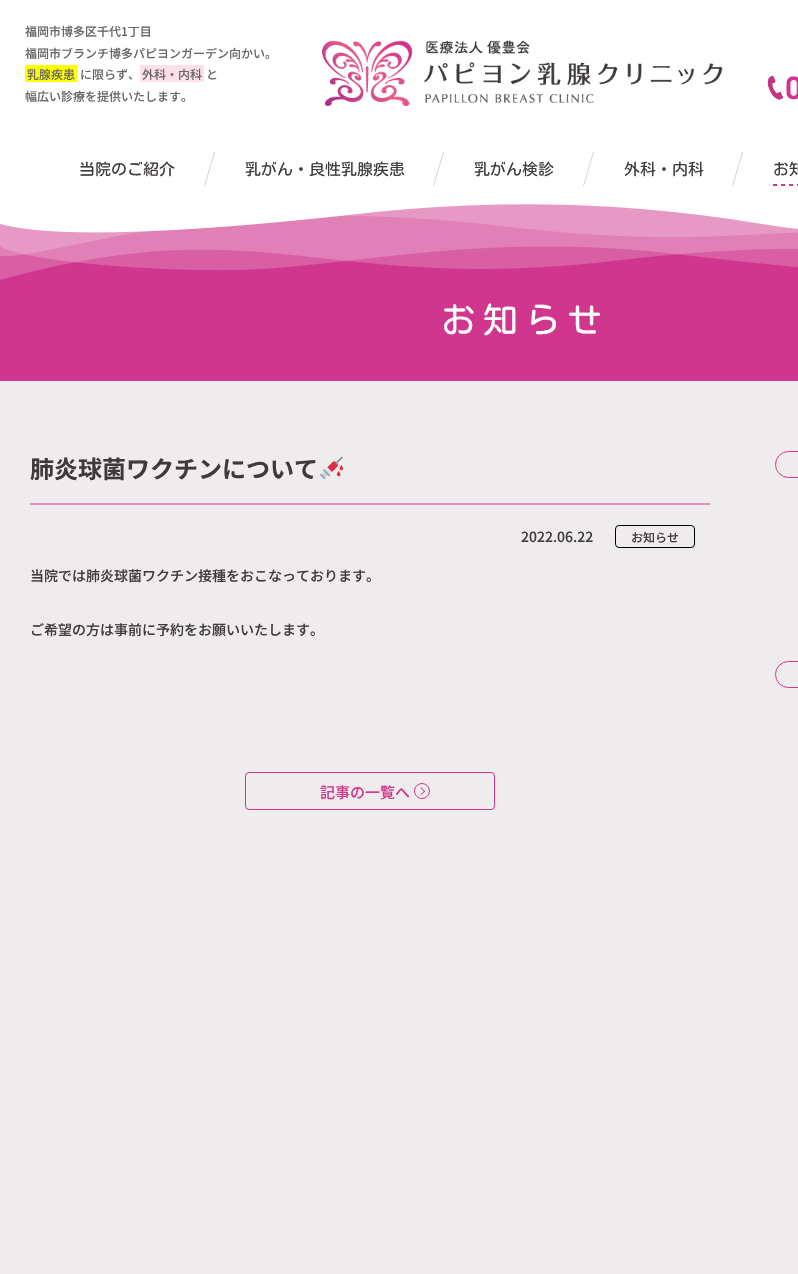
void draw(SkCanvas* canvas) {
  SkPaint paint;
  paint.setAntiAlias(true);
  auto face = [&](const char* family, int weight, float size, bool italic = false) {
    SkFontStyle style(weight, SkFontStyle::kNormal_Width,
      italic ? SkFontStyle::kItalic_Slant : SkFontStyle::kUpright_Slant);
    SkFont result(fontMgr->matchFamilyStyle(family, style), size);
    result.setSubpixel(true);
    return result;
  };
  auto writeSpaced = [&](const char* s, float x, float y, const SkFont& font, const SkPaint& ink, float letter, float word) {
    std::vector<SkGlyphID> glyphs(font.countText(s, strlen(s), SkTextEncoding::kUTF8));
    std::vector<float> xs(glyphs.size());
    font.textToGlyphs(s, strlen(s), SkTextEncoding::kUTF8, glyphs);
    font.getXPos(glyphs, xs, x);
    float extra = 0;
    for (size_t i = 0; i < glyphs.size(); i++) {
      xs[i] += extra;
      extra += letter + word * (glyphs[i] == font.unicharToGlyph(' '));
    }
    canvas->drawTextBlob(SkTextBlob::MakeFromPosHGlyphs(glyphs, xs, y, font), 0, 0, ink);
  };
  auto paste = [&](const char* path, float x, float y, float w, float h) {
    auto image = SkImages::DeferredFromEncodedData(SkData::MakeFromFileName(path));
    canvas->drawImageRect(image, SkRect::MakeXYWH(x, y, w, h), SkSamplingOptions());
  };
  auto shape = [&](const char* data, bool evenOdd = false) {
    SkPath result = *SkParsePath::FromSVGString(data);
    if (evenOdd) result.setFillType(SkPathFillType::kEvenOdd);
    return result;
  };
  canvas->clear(0xffffffff);
  paint.setColor(0xffffff00);
  canvas->drawRect(SkRect::MakeXYWH(25, 65, 52, 17), paint);
  paint.setColor(0xffffdfea);
  canvas->drawRect(SkRect::MakeXYWH(140, 65, 64, 17), paint);
  paste("img/1.png", 322, 40, 401, 66);
  paste("img/2.png", 767, 75, 31, 25);
  paste("img/3.png", 204, 152, 11, 34);
  paste("img/3.png", 433, 152, 11, 34);
  paste("img/3.png", 583, 152, 11, 34);
  paste("img/3.png", 732, 152, 11, 34);
  paste("img/4.png", 773, 184, 25, 2);
  paint.setColor(0xffefeced);
  canvas->drawRect(SkRect::MakeXYWH(0, 381, 798, 893), paint);
  paint.setColor(0xffd0368e);
  canvas->drawRect(SkRect::MakeXYWH(0, 204, 798, 177), paint);
  paste("img/5.png", 0, 201, 798, 79);
  paste("img/6.png", 320, 456, 24, 24);
  paint.setColor(0xffe091bd);
  canvas->drawRect(SkRect::MakeXYWH(30, 503, 680, 2), paint);
  paint.setStroke(true);
  paint.setStrokeWidth(1);
  paint.setColor(0xff000000);
  canvas->drawRoundRect(SkRect::MakeXYWH(615.5f, 525.5f, 79, 22), 3.5f, 3.5f, paint);
  paint.setColor(0xffd0368d);
  canvas->drawRoundRect(SkRect::MakeXYWH(245.5f, 772.5f, 249, 37), 3.5f, 3.5f, paint);
  canvas->drawCircle(422, 791, 7.5f, paint);
  paint.setStroke(false);
  canvas->drawPath(shape("M421 787L425 791.5L424.5 792L420.5 788Z"), paint);
  canvas->drawPath(shape("M424.5 790.5L425 791.5L421 795.5L420.5 795Z"), paint);
  paint.setStroke(true);
  canvas->drawRoundRect(SkRect::MakeXYWH(775.5f, 451.5f, 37, 26), 13, 13, paint);
  canvas->drawRoundRect(SkRect::MakeXYWH(775.5f, 661.5f, 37, 26), 13, 13, paint);
  auto f0 = face("Noto Sans JP", 500, 12);
  paint.setStroke(false);
  paint.setColor(0xff666666);
  {
    const struct { const char* s; float x, y; } items[] = {
      {"福岡市博多区千代1丁目", 25, 36},
      {"福岡市ブランチ博多パピヨンガーデン向かい。", 25, 58},
      {"乳腺疾患", 27, 79},
      {"に限らず、", 80, 79},
      {"外科・内科", 142, 79},
      {"と", 206, 79},
      {"幅広い診療を提供いたします。", 25, 101},
    };
    for (auto [s, x, y] : items) {
      canvas->drawString(s, x, y, f0, paint);
    }
  }
  auto f1 = face("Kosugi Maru", 400, 16);
  paint.setColor(0xff3e3a39);
  {
    const struct { const char* s; float x, y; } items[] = {
      {"当院のご紹介", 79, 175},
      {"乳がん・良性乳腺疾患", 245, 175},
      {"乳がん検診", 474, 175},
      {"外科・内科", 624, 175},
      {"お知", 773, 175},
    };
    for (auto [s, x, y] : items) {
      canvas->drawString(s, x, y, f1, paint);
    }
  }
  auto f2 = face("Kosugi Maru", 400, 35);
  paint.setColor(0xffffffff);
  writeSpaced("お知らせ", 441, 333, f2, paint, 7, 0);
  auto f3 = face("Noto Sans JP", 700, 24);
  paint.setColor(0xff3e3a39);
  canvas->drawString("肺炎球菌ワクチンについて", 30, 478, f3, paint);
  auto f4 = face("Noto Sans JP", 500, 14);
  canvas->drawString("2022.06.22", 521, 542, f4, paint);
  canvas->drawString("お知らせ", 631, 542, f0, paint);
  canvas->drawString("当院では肺炎球菌ワクチン接種をおこなっております。", 30, 581, f4, paint);
  canvas->drawString("ご希望の方は事前に予約をお願いいたします。", 30, 635, f4, paint);
  auto f5 = face("Noto Sans JP", 500, 15);
  paint.setColor(0xffd0368d);
  canvas->drawString("記事の一覧へ", 320, 798, f5, paint);
}
